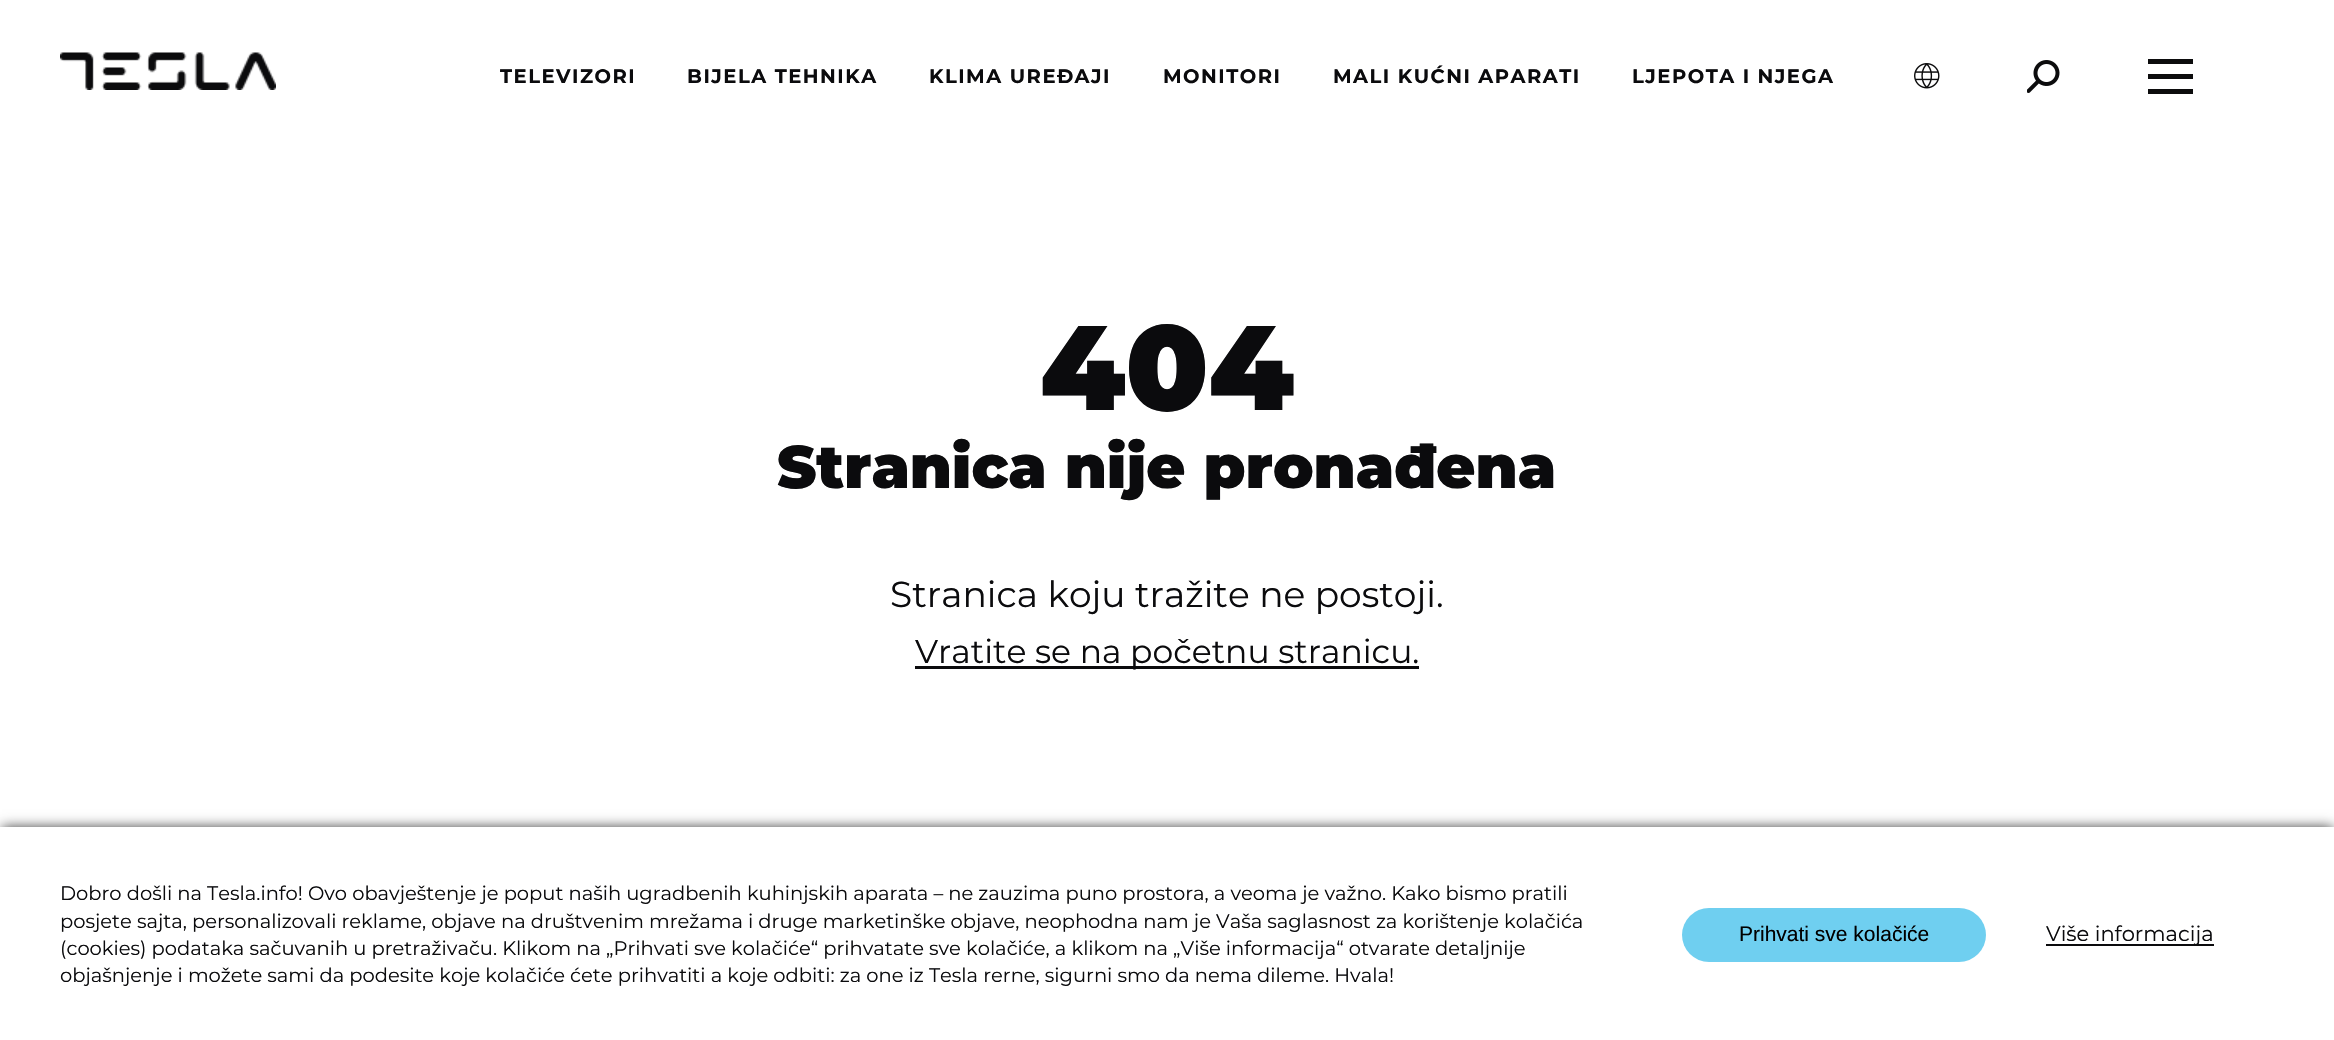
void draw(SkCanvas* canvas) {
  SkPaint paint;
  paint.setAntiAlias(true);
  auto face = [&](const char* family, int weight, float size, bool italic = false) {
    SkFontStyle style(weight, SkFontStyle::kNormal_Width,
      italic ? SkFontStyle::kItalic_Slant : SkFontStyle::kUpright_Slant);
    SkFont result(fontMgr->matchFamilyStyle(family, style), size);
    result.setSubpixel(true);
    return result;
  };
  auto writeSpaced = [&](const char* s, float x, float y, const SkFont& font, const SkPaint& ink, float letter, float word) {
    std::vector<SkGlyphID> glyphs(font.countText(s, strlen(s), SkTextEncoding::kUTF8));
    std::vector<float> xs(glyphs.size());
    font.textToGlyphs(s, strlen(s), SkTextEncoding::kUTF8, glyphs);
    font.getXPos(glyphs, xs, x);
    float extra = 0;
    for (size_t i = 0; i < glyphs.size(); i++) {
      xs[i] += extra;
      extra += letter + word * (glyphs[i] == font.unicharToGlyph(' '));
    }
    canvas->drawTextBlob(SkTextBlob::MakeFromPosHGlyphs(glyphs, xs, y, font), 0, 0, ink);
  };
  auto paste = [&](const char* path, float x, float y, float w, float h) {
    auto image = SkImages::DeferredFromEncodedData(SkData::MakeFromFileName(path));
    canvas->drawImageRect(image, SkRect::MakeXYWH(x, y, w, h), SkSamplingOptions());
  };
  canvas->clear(0xffffffff);
  paste("img/1.png", 60, 52, 216, 38);
  paste("img/2.png", 1914, 63, 26, 26);
  paste("img/3.png", 2027, 60, 33, 33);
  {
    const struct { float x, y, w, h; SkColor color; } items[] = {
      {2148, 59, 45, 5, 0xff0c0c0d},
      {2148, 74, 45, 5, 0xff0c0c0d},
      {2148, 89, 45, 5, 0xff0c0c0d},
      {915, 666, 504, 3, 0xff0b0b0d},
    };
    for (auto [x, y, w, h, color] : items) {
      paint.setColor(color);
      canvas->drawRect(SkRect::MakeXYWH(x, y, w, h), paint);
    }
  }
  paint.setColor(0xbf000000);
  paint.setMaskFilter(SkMaskFilter::MakeBlur(kNormal_SkBlurStyle, 6));
  canvas->drawRect(SkRect::MakeXYWH(2, 827, 2331, 211), paint);
  paint.setMaskFilter(nullptr);
  paint.setColor(0xffffffff);
  canvas->drawRect(SkRect::MakeXYWH(0, 827, 2334, 213), paint);
  paint.setColor(0xff6fcff0);
  canvas->drawRoundRect(SkRect::MakeXYWH(1682, 908, 304, 54), 27, 27, paint);
  paint.setColor(0xff0b0b0d);
  canvas->drawRect(SkRect::MakeXYWH(2046, 944, 168, 2), paint);
  auto f0 = face("Montserrat", 700, 19.5f);
  {
    const struct { const char* s; float x, y; } items[] = {
      {"TELEVIZORI", 500, 83},
      {"BIJELA TEHNIKA", 687, 83},
      {"KLIMA UREĐAJI", 929, 83},
      {"MONITORI", 1163, 83},
      {"MALI KUĆNI APARATI", 1333, 83},
      {"LJEPOTA I NJEGA", 1632, 83},
    };
    for (auto [s, x, y] : items) {
      writeSpaced(s, x, y, f0, paint, 1.5f, 0);
    }
  }
  auto f1 = face("Montserrat", 900, 120);
  canvas->drawString("404", 1040, 410, f1, paint);
  auto f2 = face("Montserrat", 900, 60);
  canvas->drawString("Stranica nije pronađena", 777, 488, f2, paint);
  auto f3 = face("Montserrat", 400, 36);
  canvas->drawString("Stranica koju tražite ne postoji.", 890, 607, f3, paint);
  auto f4 = face("Montserrat", 400, 33);
  canvas->drawString("Vratite se na početnu stranicu.", 915, 663, f4, paint);
  auto f5 = face("Montserrat", 400, 19.5f);
  {
    const struct { const char* s; float x, y; } items[] = {
      {"Dobro došli na Tesla.info! Ovo obavještenje je poput naših ugradbenih kuhinjskih aparata – ne zauzima puno prostora, a veoma je važno. Kako bismo pratili", 60, 900},
      {"posjete sajta, personalizovali reklame, objave na društvenim mrežama i druge marketinške objave, neophodna nam je Vaša saglasnost za korištenje kolačića", 60, 928},
      {"(cookies) podataka sačuvanih u pretraživaču. Klikom na „Prihvati sve kolačiće“ prihvatate sve kolačiće, a klikom na „Više informacija“ otvarate detaljnije", 60, 955},
      {"objašnjenje i možete sami da podesite koje kolačiće ćete prihvatiti a koje odbiti: za one iz Tesla rerne, sigurni smo da nema dileme. Hvala!", 60, 982},
    };
    for (auto [s, x, y] : items) {
      canvas->drawString(s, x, y, f5, paint);
    }
  }
  auto f6 = face("Liberation Sans", 400, 21);
  paint.setColor(0xff000000);
  canvas->drawString("Prihvati sve kolačiće", 1739, 941, f6, paint);
  auto f7 = face("Montserrat", 400, 21);
  paint.setColor(0xff0b0b0d);
  canvas->drawString("Više informacija", 2046, 941, f7, paint);
}
